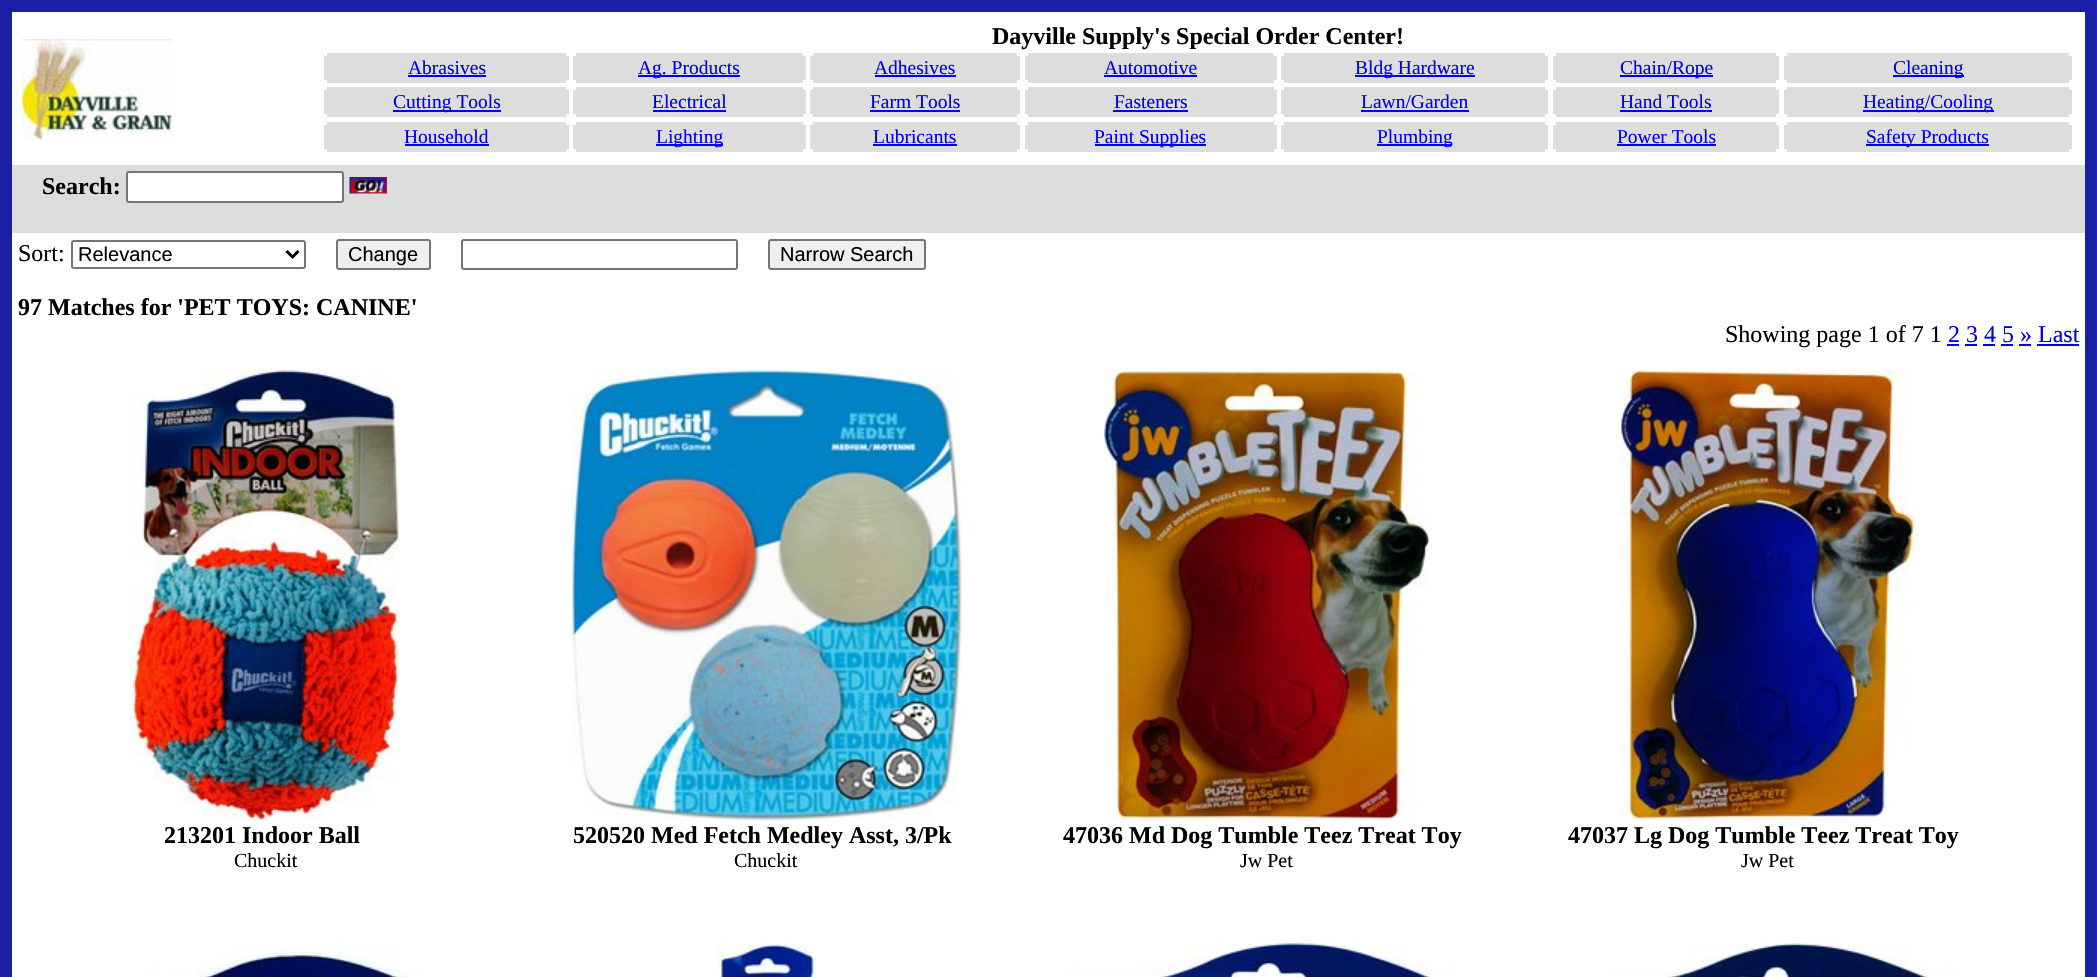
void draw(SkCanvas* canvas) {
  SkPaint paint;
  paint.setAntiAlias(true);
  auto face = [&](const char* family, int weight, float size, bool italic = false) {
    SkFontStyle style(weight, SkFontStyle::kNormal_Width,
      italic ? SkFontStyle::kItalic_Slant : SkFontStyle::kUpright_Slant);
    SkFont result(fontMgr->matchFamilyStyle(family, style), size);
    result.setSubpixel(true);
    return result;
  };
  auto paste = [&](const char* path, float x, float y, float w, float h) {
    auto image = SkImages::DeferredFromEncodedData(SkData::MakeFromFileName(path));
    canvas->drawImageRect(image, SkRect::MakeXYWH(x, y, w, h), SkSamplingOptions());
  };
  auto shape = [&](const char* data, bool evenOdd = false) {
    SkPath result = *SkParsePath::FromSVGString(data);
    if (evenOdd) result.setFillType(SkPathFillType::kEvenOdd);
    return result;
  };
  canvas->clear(0xff181ea5);
  paint.setColor(0xffffffff);
  canvas->drawRect(SkRect::MakeXYWH(12, 12, 2073, 153), paint);
  paste("img/1.png", 22, 39, 151, 101);
  {
    const struct { float x, y, w, h; SkColor color; } items[] = {
      {327, 53, 239, 3, 0xffdddddd},
      {324, 56, 245, 24, 0xffdddddd},
      {408, 75, 78, 2, 0xff0000ee},
      {327, 80, 239, 3, 0xffdddddd},
      {576, 53, 227, 3, 0xffdddddd},
      {573, 56, 233, 24, 0xffdddddd},
      {638, 75, 102, 2, 0xff0000ee},
      {576, 80, 227, 3, 0xffdddddd},
      {813, 53, 204, 3, 0xffdddddd},
      {810, 56, 210, 24, 0xffdddddd},
      {875, 75, 81, 2, 0xff0000ee},
      {813, 80, 204, 3, 0xffdddddd},
      {1028, 53, 246, 3, 0xffdddddd},
      {1025, 56, 252, 24, 0xffdddddd},
      {1104, 75, 93, 2, 0xff0000ee},
      {1028, 80, 246, 3, 0xffdddddd},
      {1284, 53, 261, 3, 0xffdddddd},
      {1281, 56, 267, 24, 0xffdddddd},
      {1355, 75, 120, 2, 0xff0000ee},
      {1284, 80, 261, 3, 0xffdddddd},
      {1556, 53, 220, 3, 0xffdddddd},
      {1553, 56, 226, 24, 0xffdddddd},
      {1620, 75, 93, 2, 0xff0000ee},
      {1556, 80, 220, 3, 0xffdddddd},
      {1787, 53, 282, 3, 0xffdddddd},
      {1784, 56, 288, 24, 0xffdddddd},
      {1893, 75, 71, 2, 0xff0000ee},
      {1787, 80, 282, 3, 0xffdddddd},
      {327, 87, 239, 3, 0xffdddddd},
      {324, 90, 245, 24, 0xffdddddd},
      {393, 110, 108, 2, 0xff0000ee},
      {327, 114, 239, 3, 0xffdddddd},
      {576, 87, 227, 3, 0xffdddddd},
      {573, 90, 233, 24, 0xffdddddd},
      {653, 110, 73, 2, 0xff0000ee},
      {576, 114, 227, 3, 0xffdddddd},
      {813, 87, 204, 3, 0xffdddddd},
      {810, 90, 210, 24, 0xffdddddd},
      {870, 110, 90, 2, 0xff0000ee},
      {813, 114, 204, 3, 0xffdddddd},
      {1028, 87, 246, 3, 0xffdddddd},
      {1025, 90, 252, 24, 0xffdddddd},
      {1113, 110, 75, 2, 0xff0000ee},
      {1028, 114, 246, 3, 0xffdddddd},
      {1284, 87, 261, 3, 0xffdddddd},
      {1281, 90, 267, 24, 0xffdddddd},
      {1361, 110, 108, 2, 0xff0000ee},
      {1284, 114, 261, 3, 0xffdddddd},
      {1556, 87, 220, 3, 0xffdddddd},
      {1553, 90, 226, 24, 0xffdddddd},
      {1620, 110, 92, 2, 0xff0000ee},
      {1556, 114, 220, 3, 0xffdddddd},
      {1787, 87, 282, 3, 0xffdddddd},
      {1784, 90, 288, 24, 0xffdddddd},
      {1863, 110, 131, 2, 0xff0000ee},
      {1787, 114, 282, 3, 0xffdddddd},
      {327, 122, 239, 3, 0xffdddddd},
      {324, 125, 245, 24, 0xffdddddd},
      {405, 144, 84, 2, 0xff0000ee},
      {327, 149, 239, 3, 0xffdddddd},
      {576, 122, 227, 3, 0xffdddddd},
      {573, 125, 233, 24, 0xffdddddd},
      {656, 144, 67, 2, 0xff0000ee},
      {576, 149, 227, 3, 0xffdddddd},
      {813, 122, 204, 3, 0xffdddddd},
      {810, 125, 210, 24, 0xffdddddd},
      {873, 144, 84, 2, 0xff0000ee},
      {813, 149, 204, 3, 0xffdddddd},
      {1028, 122, 246, 3, 0xffdddddd},
      {1025, 125, 252, 24, 0xffdddddd},
      {1095, 144, 111, 2, 0xff0000ee},
      {1028, 149, 246, 3, 0xffdddddd},
      {1284, 122, 261, 3, 0xffdddddd},
      {1281, 125, 267, 24, 0xffdddddd},
      {1377, 144, 75, 2, 0xff0000ee},
      {1284, 149, 261, 3, 0xffdddddd},
      {1556, 122, 220, 3, 0xffdddddd},
      {1553, 125, 226, 24, 0xffdddddd},
      {1617, 144, 99, 2, 0xff0000ee},
      {1556, 149, 220, 3, 0xffdddddd},
      {1787, 122, 282, 3, 0xffdddddd},
      {1784, 125, 288, 24, 0xffdddddd},
      {1866, 144, 123, 2, 0xff0000ee},
      {1787, 149, 282, 3, 0xffdddddd},
      {12, 165, 2073, 68, 0xffdddddd},
    };
    for (auto [x, y, w, h, color] : items) {
      paint.setColor(color);
      canvas->drawRect(SkRect::MakeXYWH(x, y, w, h), paint);
    }
  }
  paint.setColor(0xffffffff);
  canvas->drawRoundRect(SkRect::MakeXYWH(127, 172, 216, 30), 2, 2, paint);
  paint.setStroke(true);
  paint.setStrokeWidth(2);
  paint.setColor(0xff767676);
  canvas->drawRoundRect(SkRect::MakeXYWH(127, 172, 216, 30), 2, 2, paint);
  paste("img/2.png", 349, 177, 38, 17);
  paint.setStroke(false);
  paint.setColor(0xffffffff);
  canvas->drawRect(SkRect::MakeXYWH(12, 233, 2073, 744), paint);
  paint.setStroke(true);
  paint.setColor(0xff767676);
  canvas->drawRoundRect(SkRect::MakeXYWH(72, 241, 233, 27), 2, 2, paint);
  paint.setStrokeWidth(3);
  paint.setColor(0xff000000);
  canvas->drawPath(shape("M286.5 251L292.5 257L298.5 251"), paint);
  paint.setStroke(false);
  paint.setColor(0xffefefef);
  canvas->drawRoundRect(SkRect::MakeXYWH(337, 240, 93, 29), 2, 2, paint);
  paint.setStroke(true);
  paint.setStrokeWidth(2);
  paint.setColor(0xff767676);
  canvas->drawRoundRect(SkRect::MakeXYWH(337, 240, 93, 29), 2, 2, paint);
  canvas->drawRoundRect(SkRect::MakeXYWH(462, 240, 275, 29), 2, 2, paint);
  paint.setStroke(false);
  paint.setColor(0xffefefef);
  canvas->drawRoundRect(SkRect::MakeXYWH(769, 240, 156, 29), 2, 2, paint);
  paint.setStroke(true);
  paint.setColor(0xff767676);
  canvas->drawRoundRect(SkRect::MakeXYWH(769, 240, 156, 29), 2, 2, paint);
  paint.setStroke(false);
  {
    const struct { float x, y, w, h; SkColor color; } items[] = {
      {1947, 344, 12, 2, 0xff0000ee},
      {1965, 344, 12, 2, 0xff0000ee},
      {1983, 344, 12, 2, 0xff0000ee},
      {2001, 344, 12, 2, 0xff0000ee},
      {2019, 344, 12, 2, 0xff0000ee},
      {2037, 344, 42, 2, 0xff0000ee},
    };
    for (auto [x, y, w, h, color] : items) {
      paint.setColor(color);
      canvas->drawRect(SkRect::MakeXYWH(x, y, w, h), paint);
    }
  }
  paste("img/3.png", 130, 370, 269, 451);
  paste("img/4.png", 571, 370, 391, 451);
  paste("img/5.png", 1104, 370, 326, 451);
  paste("img/6.png", 1620, 370, 296, 451);
  paste("img/7.png", 149, 943, 270, 34);
  paste("img/8.png", 717, 943, 99, 34);
  paste("img/9.png", 1070, 943, 383, 34);
  paste("img/10.png", 1612, 943, 344, 34);
  auto f0 = face("Liberation Serif", 700, 24);
  paint.setColor(0xff000000);
  canvas->drawString("Dayville Supply's Special Order Center!", 992, 44, f0, paint);
  auto f1 = face("Liberation Serif", 400, 19.5f);
  paint.setColor(0xff0000ee);
  {
    const struct { const char* s; float x, y; } items[] = {
      {"Abrasives", 408, 74},
      {"Ag. Products", 638, 74},
      {"Adhesives", 874, 74},
      {"Automotive", 1104, 74},
      {"Bldg Hardware", 1355, 74},
      {"Chain/Rope", 1620, 74},
      {"Cleaning", 1893, 74},
      {"Cutting Tools", 393, 108},
      {"Electrical", 652, 108},
      {"Farm Tools", 870, 108},
      {"Fasteners", 1114, 108},
      {"Lawn/Garden", 1361, 108},
      {"Hand Tools", 1620, 108},
      {"Heating/Cooling", 1863, 108},
      {"Household", 404, 143},
      {"Lighting", 656, 143},
      {"Lubricants", 873, 143},
      {"Paint Supplies", 1094, 143},
      {"Plumbing", 1377, 143},
      {"Power Tools", 1617, 143},
      {"Safety Products", 1866, 143},
    };
    for (auto [s, x, y] : items) {
      canvas->drawString(s, x, y, f1, paint);
    }
  }
  paint.setColor(0xff000000);
  canvas->drawString("Search:", 42, 194, f0, paint);
  auto f2 = face("Liberation Serif", 400, 24);
  canvas->drawString("Sort:", 18, 261, f2, paint);
  auto f3 = face("Liberation Sans", 400, 20);
  {
    const struct { const char* s; float x, y; } items[] = {
      {"Relevance", 78, 261},
      {"Change", 348, 261},
      {"Narrow Search", 780, 261},
    };
    for (auto [s, x, y] : items) {
      canvas->drawString(s, x, y, f3, paint);
    }
  }
  canvas->drawString("97 Matches for 'PET TOYS: CANINE'", 18, 315, f0, paint);
  canvas->drawString("Showing page 1 of 7 1", 1725, 342, f2, paint);
  paint.setColor(0xff0000ee);
  canvas->drawString("2 3 4 5 » Last", 1948, 342, f2, paint);
  paint.setColor(0xff000000);
  canvas->drawString("213201 Indoor Ball", 164, 843, f0, paint);
  auto f4 = face("Liberation Serif", 400, 20);
  canvas->drawString("Chuckit", 234, 867, f4, paint);
  canvas->drawString("520520 Med Fetch Medley Asst, 3/Pk", 573, 843, f0, paint);
  canvas->drawString("Chuckit", 734, 867, f4, paint);
  canvas->drawString("47036 Md Dog Tumble Teez Treat Toy", 1063, 843, f0, paint);
  canvas->drawString("Jw Pet", 1240, 867, f4, paint);
  canvas->drawString("47037 Lg Dog Tumble Teez Treat Toy", 1568, 843, f0, paint);
  canvas->drawString("Jw Pet", 1741, 867, f4, paint);
}
